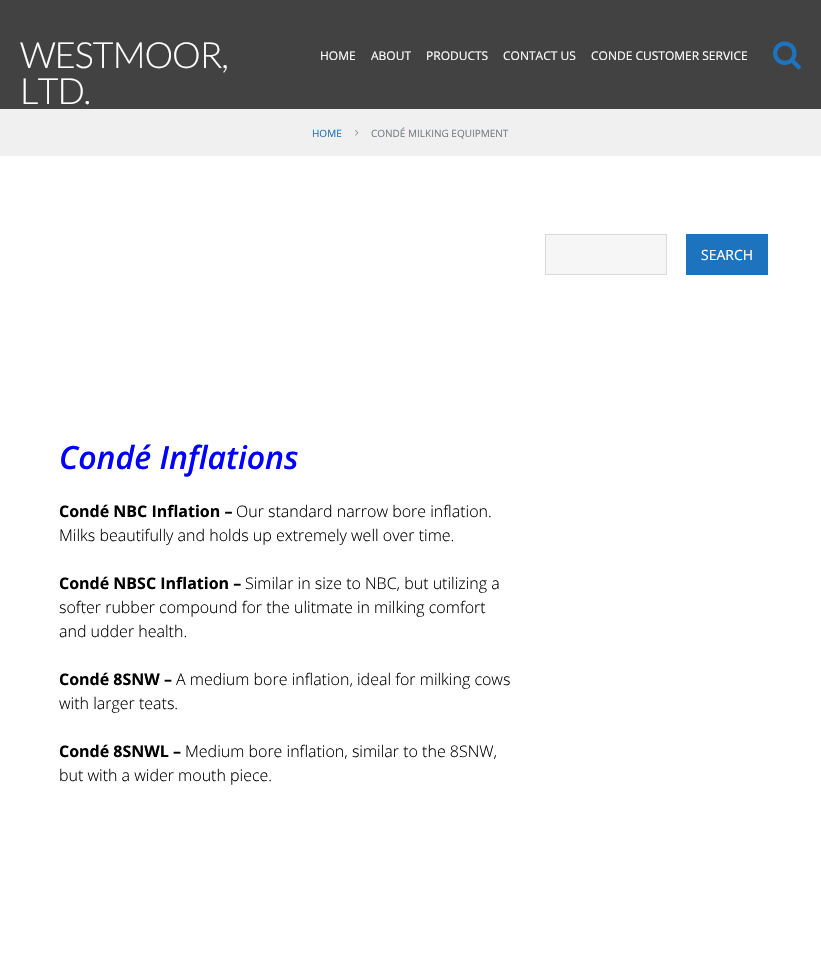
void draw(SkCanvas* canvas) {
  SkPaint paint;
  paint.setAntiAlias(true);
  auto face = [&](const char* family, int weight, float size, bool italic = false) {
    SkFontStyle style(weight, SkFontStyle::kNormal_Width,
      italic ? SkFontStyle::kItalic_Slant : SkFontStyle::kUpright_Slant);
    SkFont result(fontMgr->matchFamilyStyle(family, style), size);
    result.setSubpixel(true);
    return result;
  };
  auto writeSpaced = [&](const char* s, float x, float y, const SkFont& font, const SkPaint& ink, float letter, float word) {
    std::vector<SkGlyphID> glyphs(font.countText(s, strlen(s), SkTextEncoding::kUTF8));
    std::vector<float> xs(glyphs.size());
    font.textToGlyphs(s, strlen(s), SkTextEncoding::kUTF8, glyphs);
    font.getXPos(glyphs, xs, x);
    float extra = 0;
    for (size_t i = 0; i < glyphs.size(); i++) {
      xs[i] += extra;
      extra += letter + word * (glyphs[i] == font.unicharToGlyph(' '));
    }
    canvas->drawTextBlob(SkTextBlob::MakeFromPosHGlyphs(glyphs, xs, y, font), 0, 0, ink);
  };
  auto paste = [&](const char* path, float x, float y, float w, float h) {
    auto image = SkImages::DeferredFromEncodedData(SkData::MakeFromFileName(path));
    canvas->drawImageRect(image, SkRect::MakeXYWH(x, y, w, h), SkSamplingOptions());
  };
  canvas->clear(0xffffffff);
  paint.setColor(0xff424242);
  canvas->drawRect(SkRect::MakeXYWH(0, 0, 821, 109), paint);
  paste("img/1.png", 773, 41, 28, 29);
  paint.setColor(0xfff0f0f0);
  canvas->drawRect(SkRect::MakeXYWH(0, 109, 49, 47), paint);
  canvas->drawRect(SkRect::MakeXYWH(49, 109, 772, 47), paint);
  paste("img/2.png", 355, 130, 4, 6);
  paint.setColor(0xfff6f6f7);
  canvas->drawRect(SkRect::MakeXYWH(545.5f, 234.5f, 121, 40), paint);
  paint.setStroke(true);
  paint.setStrokeWidth(1);
  paint.setColor(0xffd8dadc);
  canvas->drawRect(SkRect::MakeXYWH(545.5f, 234.5f, 121, 40), paint);
  paint.setStroke(false);
  paint.setColor(0xff1e73be);
  canvas->drawRect(SkRect::MakeXYWH(686, 234, 82, 41), paint);
  auto f0 = face("Lato", 300, 36);
  paint.setColor(0xffffffff);
  writeSpaced("WESTMOOR,", 20, 68, f0, paint, -1, 0);
  writeSpaced("LTD.", 20, 104, f0, paint, -1, 0);
  auto f1 = face("Open Sans", 400, 12);
  {
    const struct { const char* s; float x, y; } items[] = {
      {"HOME", 320, 60},
      {"ABOUT", 371, 60},
      {"PRODUCTS", 426, 60},
      {"CONTACT US", 503, 60},
      {"CONDE CUSTOMER SERVICE", 591, 60},
    };
    for (auto [s, x, y] : items) {
      canvas->drawString(s, x, y, f1, paint);
    }
  }
  auto f2 = face("Open Sans", 400, 10);
  paint.setColor(0xff1e73be);
  canvas->drawString("HOME", 312, 137, f2, paint);
  paint.setColor(0xff757c7f);
  canvas->drawString("CONDÉ MILKING EQUIPMENT", 371, 137, f2, paint);
  auto f3 = face("Open Sans", 400, 14);
  paint.setColor(0xffffffff);
  canvas->drawString("SEARCH", 701, 260, f3, paint);
  auto f4 = face("Open Sans", 600, 32, true);
  paint.setColor(0xff0000ff);
  canvas->drawString("Condé Inflations", 59, 469, f4, paint);
  auto f5 = face("Open Sans", 700, 16);
  paint.setColor(0xff000000);
  canvas->drawString("Condé NBC Inflation –", 59, 517, f5, paint);
  auto f6 = face("Open Sans", 300, 16);
  canvas->drawString("Our standard narrow bore inflation.", 236, 517, f6, paint);
  canvas->drawString("Milks beautifully and holds up extremely well over time.", 59, 541, f6, paint);
  canvas->drawString("Condé NBSC Inflation –", 59, 589, f5, paint);
  {
    const struct { const char* s; float x, y; } items[] = {
      {"Similar in size to NBC, but utilizing a", 245, 589},
      {"softer rubber compound for the ulitmate in milking comfort", 59, 613},
      {"and udder health.", 59, 637},
    };
    for (auto [s, x, y] : items) {
      canvas->drawString(s, x, y, f6, paint);
    }
  }
  canvas->drawString("Condé 8SNW –", 59, 685, f5, paint);
  canvas->drawString("A medium bore inflation, ideal for milking cows", 176, 685, f6, paint);
  canvas->drawString("with larger teats.", 59, 709, f6, paint);
  canvas->drawString("Condé 8SNWL –", 59, 757, f5, paint);
  canvas->drawString("Medium bore inflation, similar to the 8SNW,", 185, 757, f6, paint);
  canvas->drawString("but with a wider mouth piece.", 59, 781, f6, paint);
}
